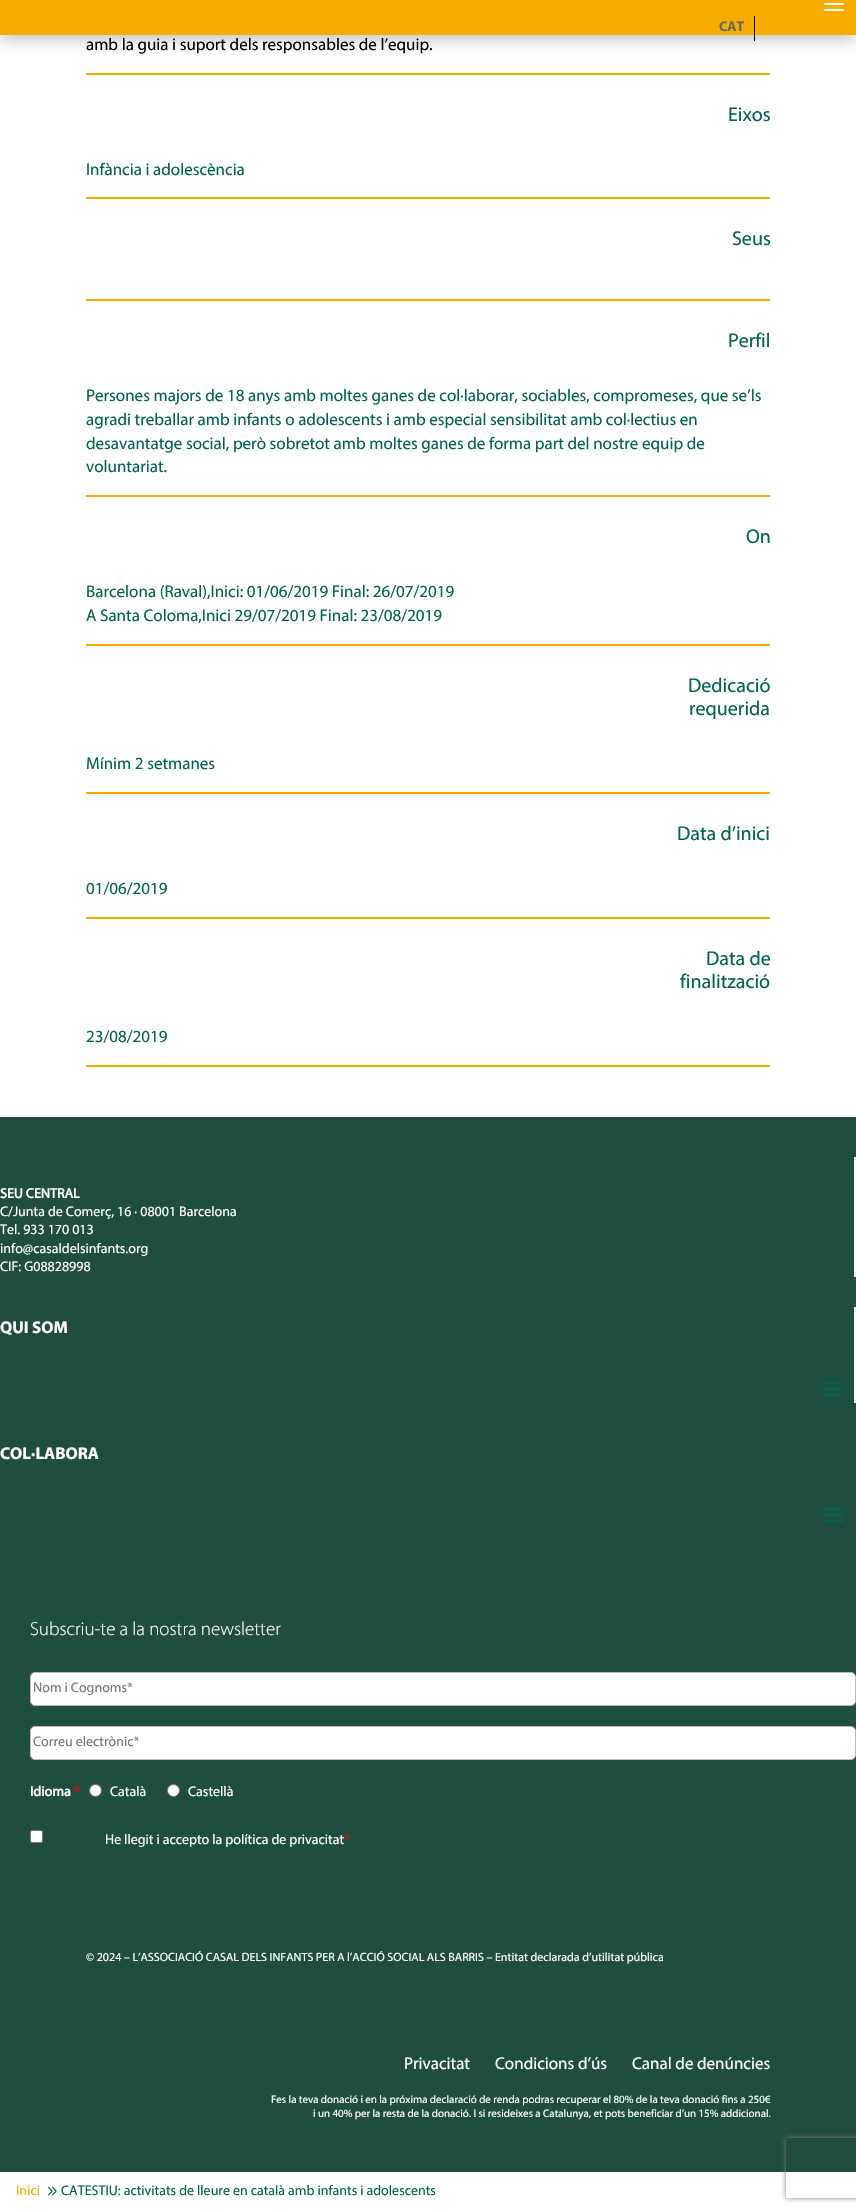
void draw(SkCanvas* canvas) {
  SkPaint paint;
  paint.setAntiAlias(true);
  auto face = [&](const char* family, int weight, float size, bool italic = false) {
    SkFontStyle style(weight, SkFontStyle::kNormal_Width,
      italic ? SkFontStyle::kItalic_Slant : SkFontStyle::kUpright_Slant);
    SkFont result(fontMgr->matchFamilyStyle(family, style), size);
    result.setSubpixel(true);
    return result;
  };
  auto paste = [&](const char* path, float x, float y, float w, float h) {
    auto image = SkImages::DeferredFromEncodedData(SkData::MakeFromFileName(path));
    canvas->drawImageRect(image, SkRect::MakeXYWH(x, y, w, h), SkSamplingOptions());
  };
  auto shape = [&](const char* data, bool evenOdd = false) {
    SkPath result = *SkParsePath::FromSVGString(data);
    if (evenOdd) result.setFillType(SkPathFillType::kEvenOdd);
    return result;
  };
  canvas->clear(0xffffffff);
  paint.setColor(0x4d000000);
  paint.setMaskFilter(SkMaskFilter::MakeBlur(kNormal_SkBlurStyle, 9));
  canvas->drawRect(SkRect::MakeXYWH(0, 2, 856, 35), paint);
  paint.setMaskFilter(nullptr);
  paint.setColor(0xfff8ac00);
  canvas->drawRect(SkRect::MakeXYWH(0, 0, 856, 35), paint);
  paste("img/1.png", 824, 2, 20, 9);
  {
    const struct { float x, y, w, h; SkColor color; } items[] = {
      {754, 16, 1, 25, 0xff000000},
      {86, 73, 684, 2, 0xfff8ac00},
      {86, 197, 684, 2, 0xfff8ac00},
      {86, 299, 684, 2, 0xfff8ac00},
      {86, 495, 684, 2, 0xfff8ac00},
      {86, 644, 684, 2, 0xfff8ac00},
      {86, 792, 684, 2, 0xfff8ac00},
      {86, 917, 684, 2, 0xfff8ac00},
      {86, 1065, 684, 2, 0xfff8ac00},
      {0, 1117, 856, 1055, 0xff1f4e40},
      {854, 1157, 2, 120, 0xffffffff},
      {854, 1307, 2, 96, 0xffffffff},
    };
    for (auto [x, y, w, h, color] : items) {
      paint.setColor(color);
      canvas->drawRect(SkRect::MakeXYWH(x, y, w, h), paint);
    }
  }
  paste("img/2.png", 822, 1382, 20, 14);
  paste("img/2.png", 824, 1508, 20, 14);
  canvas->drawRoundRect(SkRect::MakeXYWH(30.5f, 1672.5f, 825, 33), 4.5f, 4.5f, paint);
  paint.setStroke(true);
  paint.setStrokeWidth(1);
  paint.setColor(0xffbbbbbb);
  canvas->drawRoundRect(SkRect::MakeXYWH(30.5f, 1672.5f, 825, 33), 4.5f, 4.5f, paint);
  paint.setStroke(false);
  paint.setColor(0xffffffff);
  canvas->drawRoundRect(SkRect::MakeXYWH(30.5f, 1726.5f, 825, 33), 4.5f, 4.5f, paint);
  paint.setStroke(true);
  paint.setColor(0xffbbbbbb);
  canvas->drawRoundRect(SkRect::MakeXYWH(30.5f, 1726.5f, 825, 33), 4.5f, 4.5f, paint);
  paint.setStroke(false);
  paint.setColor(0xffffffff);
  canvas->drawCircle(95.5f, 1790.5f, 6, paint);
  paint.setStroke(true);
  paint.setColor(0xff767676);
  canvas->drawCircle(95.5f, 1790.5f, 6, paint);
  paint.setStroke(false);
  paint.setColor(0xffffffff);
  canvas->drawCircle(173.5f, 1790.5f, 6, paint);
  paint.setStroke(true);
  paint.setColor(0xff767676);
  canvas->drawCircle(173.5f, 1790.5f, 6, paint);
  paint.setStroke(false);
  paint.setColor(0xffffffff);
  canvas->drawRoundRect(SkRect::MakeXYWH(30.5f, 1830.5f, 12, 12), 1.5f, 1.5f, paint);
  paint.setStroke(true);
  paint.setColor(0xff767676);
  canvas->drawRoundRect(SkRect::MakeXYWH(30.5f, 1830.5f, 12, 12), 1.5f, 1.5f, paint);
  canvas->save();
  canvas->clipPath(shape("M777 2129H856V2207H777ZM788 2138H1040C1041 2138 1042 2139 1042 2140V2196C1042 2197 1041 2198 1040 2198H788C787 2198 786 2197 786 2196V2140C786 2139 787 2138 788 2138Z", true), true);
  paint.setStroke(false);
  paint.setColor(0xff808080);
  paint.setMaskFilter(SkMaskFilter::MakeBlur(kNormal_SkBlurStyle, 2.5f));
  canvas->drawRoundRect(SkRect::MakeXYWH(786, 2138, 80, 60), 2, 2, paint);
  paint.setMaskFilter(nullptr);
  canvas->restore();
  auto f0 = face("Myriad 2", 700, 14);
  paint.setColor(0xff666666);
  canvas->drawString("CAT", 719, 31, f0, paint);
  auto f1 = face("Myriad", 400, 17);
  paint.setColor(0xff000000);
  canvas->drawString("amb la guia i suport dels responsables de l’equip.", 86, 50, f1, paint);
  auto f2 = face("Myriad", 400, 20);
  paint.setColor(0xff006450);
  canvas->drawString("Eixos", 728, 121, f2, paint);
  canvas->drawString("Infància i adolescència", 86, 175, f1, paint);
  canvas->drawString("Seus", 732, 245, f2, paint);
  canvas->drawString("Perfil", 728, 347, f2, paint);
  {
    const struct { const char* s; float x, y; } items[] = {
      {"Persones majors de 18 anys amb moltes ganes de col·laborar, sociables, compromeses, que se’ls", 86, 401},
      {"agradi treballar amb infants o adolescents i amb especial sensibilitat amb col·lectius en", 86, 425},
      {"desavantatge social, però sobretot amb moltes ganes de forma part del nostre equip de", 86, 449},
      {"voluntariat.", 86, 472},
    };
    for (auto [s, x, y] : items) {
      canvas->drawString(s, x, y, f1, paint);
    }
  }
  canvas->drawString("On", 746, 543, f2, paint);
  canvas->drawString("Barcelona (Raval),Inici: 01/06/2019 Final: 26/07/2019", 86, 597, f1, paint);
  canvas->drawString("A Santa Coloma,Inici 29/07/2019 Final: 23/08/2019", 86, 621, f1, paint);
  canvas->drawString("Dedicació", 688, 692, f2, paint);
  canvas->drawString("requerida", 689, 715, f2, paint);
  canvas->drawString("Mínim 2 setmanes", 86, 769, f1, paint);
  canvas->drawString("Data d’inici", 677, 840, f2, paint);
  canvas->drawString("01/06/2019", 86, 894, f1, paint);
  canvas->drawString("Data de", 706, 965, f2, paint);
  canvas->drawString("finalització", 680, 988, f2, paint);
  canvas->drawString("23/08/2019", 86, 1042, f1, paint);
  auto f3 = face("Myriad", 700, 14);
  paint.setColor(0xffffffff);
  canvas->drawString("SEU CENTRAL", 0, 1198, f3, paint);
  auto f4 = face("Myriad", 400, 14);
  {
    const struct { const char* s; float x, y; } items[] = {
      {"C/Junta de Comerç, 16 · 08001 Barcelona", 0, 1216},
      {"Tel. 933 170 013", 0, 1234},
      {"info@casaldelsinfants.org", 0, 1253},
      {"CIF: G08828998", 0, 1271},
    };
    for (auto [s, x, y] : items) {
      canvas->drawString(s, x, y, f4, paint);
    }
  }
  auto f5 = face("Myriad 2", 700, 17);
  canvas->drawString("QUI SOM", 0, 1333, f5, paint);
  canvas->drawString("COL·LABORA", 0, 1459, f5, paint);
  auto f6 = face("Myriad", 300, 19);
  canvas->drawString("Subscriu-te a la nostra newsletter", 30, 1635, f6, paint);
  paint.setColor(0xff757575);
  canvas->drawString("Nom i Cognoms*", 33, 1692, f4, paint);
  canvas->drawString("Correu electrònic*", 33, 1746, f4, paint);
  paint.setColor(0xffffffff);
  canvas->drawString("Idioma", 30, 1796, f3, paint);
  paint.setColor(0xffe80000);
  canvas->drawString("*", 74, 1796, f3, paint);
  paint.setColor(0xffffffff);
  {
    const struct { const char* s; float x, y; } items[] = {
      {"Català", 110, 1796},
      {"Castellà", 188, 1796},
      {"He llegit i accepto la política de privacitat", 105, 1844},
    };
    for (auto [s, x, y] : items) {
      canvas->drawString(s, x, y, f4, paint);
    }
  }
  paint.setColor(0xffff0000);
  canvas->drawString("*", 344, 1844, f4, paint);
  auto f7 = face("Myriad", 400, 12);
  paint.setColor(0xffffffff);
  canvas->drawString("© 2024 – L’ASSOCIACIÓ CASAL DELS INFANTS PER A l’ACCIÓ SOCIAL ALS BARRIS – Entitat declarada d’utilitat pública", 86, 1961, f7, paint);
  {
    const struct { const char* s; float x, y; } items[] = {
      {"Privacitat", 404, 2069},
      {"Condicions d’ús", 495, 2069},
      {"Canal de denúncies", 632, 2069},
    };
    for (auto [s, x, y] : items) {
      canvas->drawString(s, x, y, f1, paint);
    }
  }
  auto f8 = face("Myriad", 400, 11);
  canvas->drawString("Fes la teva donació i en la próxima declaració de renda podras recuperar el 80% de la teva donació fins a 250€", 271, 2103, f8, paint);
  canvas->drawString("i un 40% per la resta de la donació. I si resideixes a Catalunya, et pots beneficiar d’un 15% addicional.", 313, 2117, f8, paint);
  paint.setColor(0xfff8ac00);
  canvas->drawString("Inici", 16, 2195, f4, paint);
  auto f9 = face("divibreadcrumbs", 400, 18);
  paint.setColor(0xff006450);
  canvas->drawString("9", 43, 2199, f9, paint);
  canvas->drawString("CATESTIU: activitats de lleure en català amb infants i adolescents", 61, 2195, f4, paint);
}
